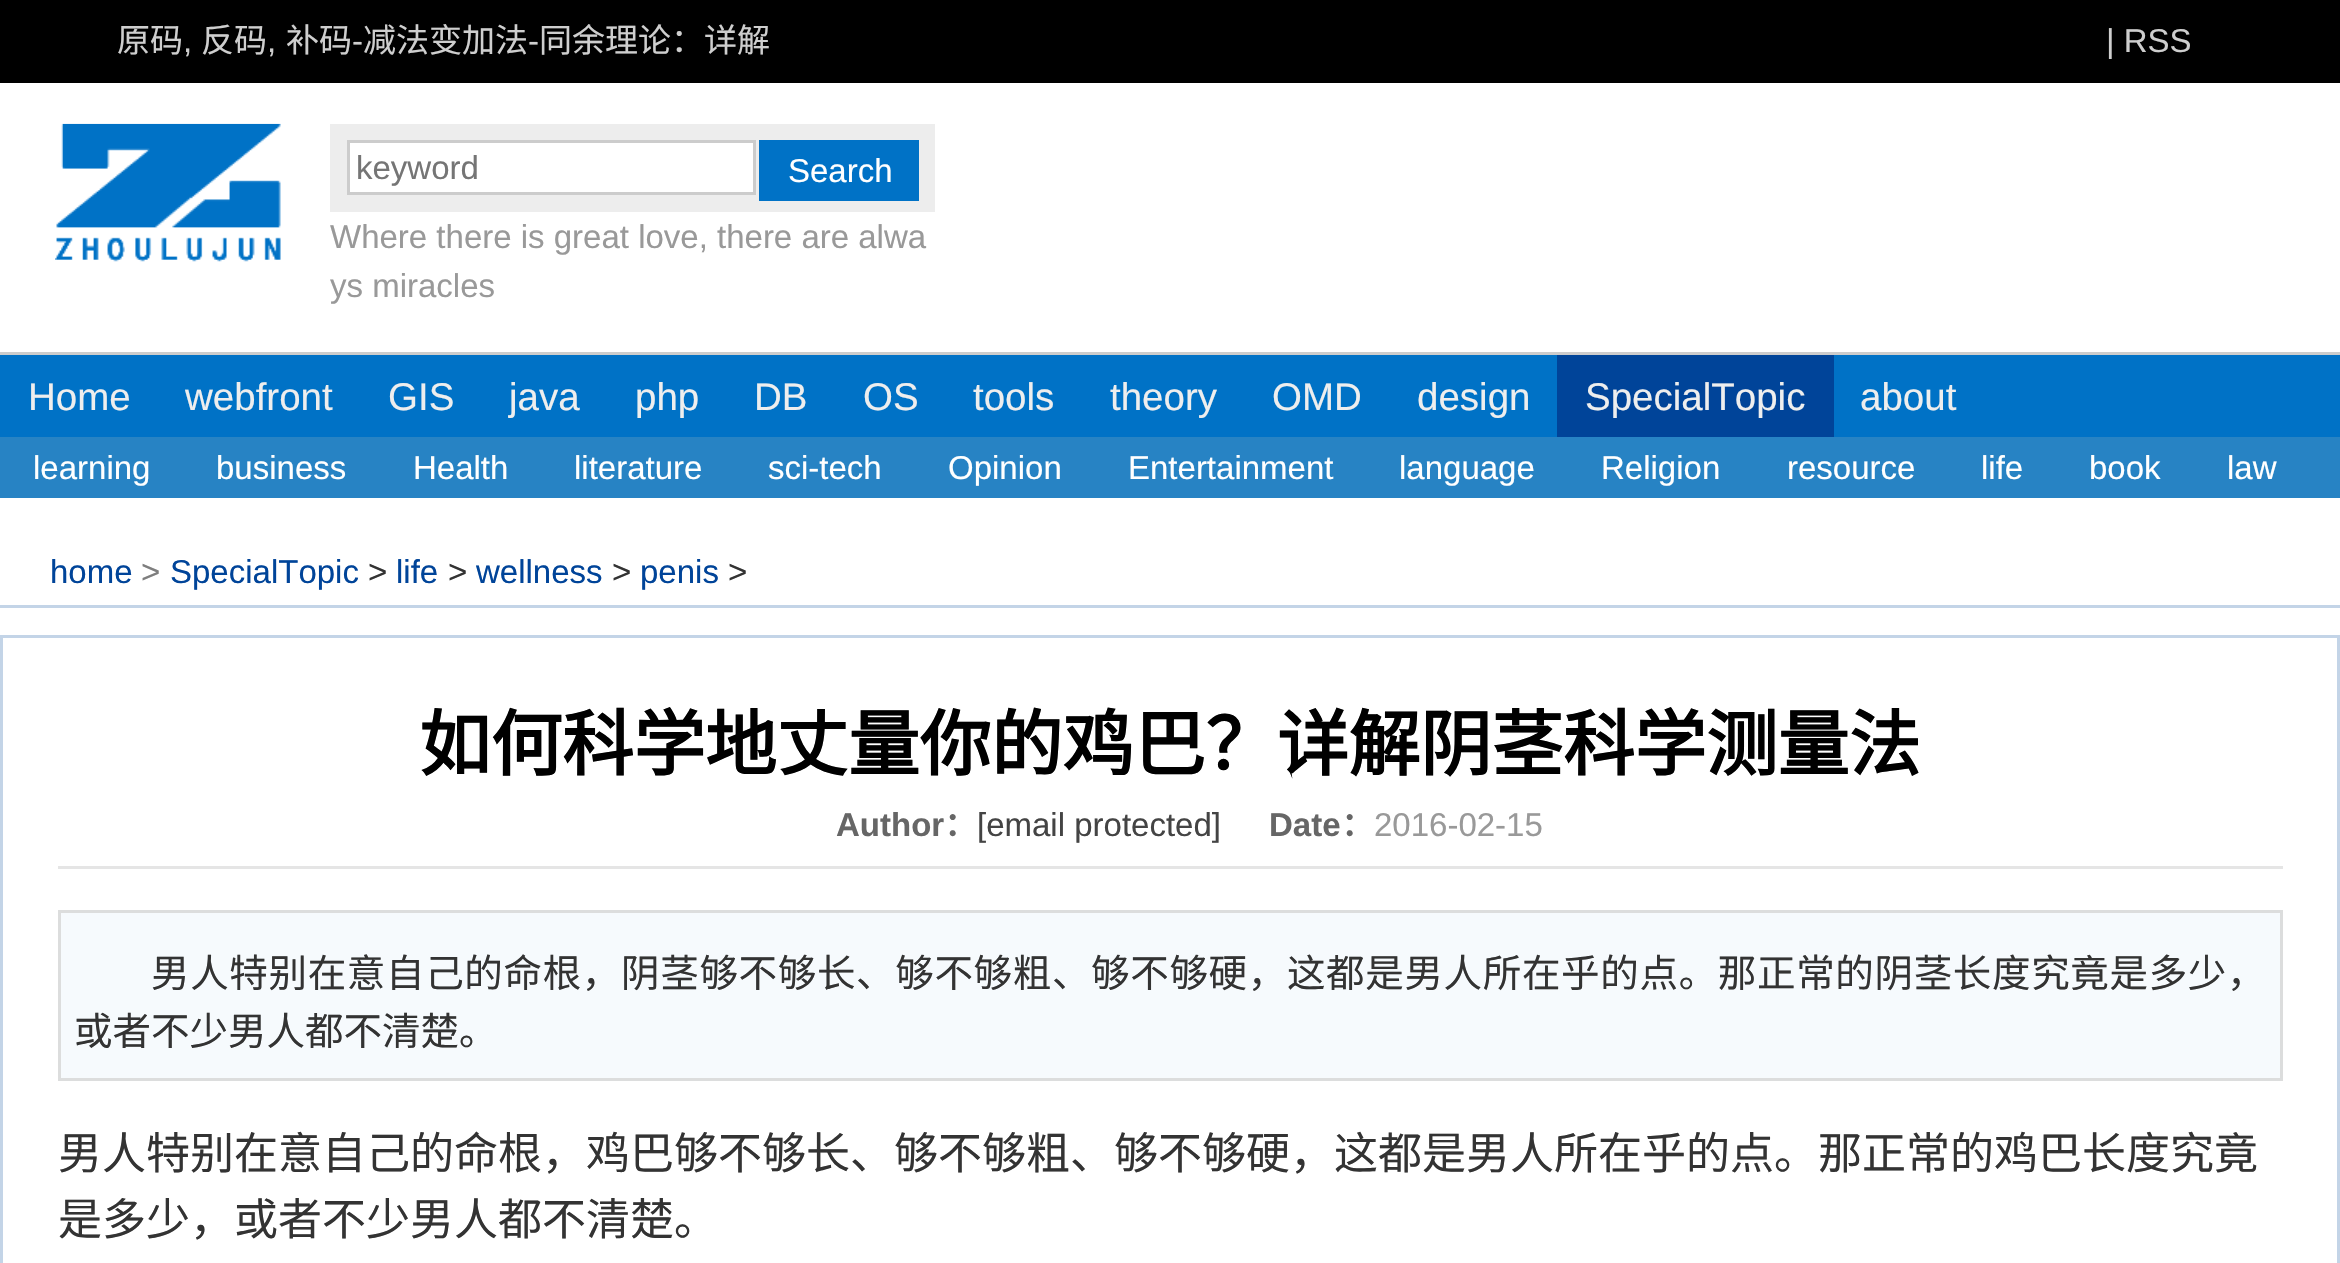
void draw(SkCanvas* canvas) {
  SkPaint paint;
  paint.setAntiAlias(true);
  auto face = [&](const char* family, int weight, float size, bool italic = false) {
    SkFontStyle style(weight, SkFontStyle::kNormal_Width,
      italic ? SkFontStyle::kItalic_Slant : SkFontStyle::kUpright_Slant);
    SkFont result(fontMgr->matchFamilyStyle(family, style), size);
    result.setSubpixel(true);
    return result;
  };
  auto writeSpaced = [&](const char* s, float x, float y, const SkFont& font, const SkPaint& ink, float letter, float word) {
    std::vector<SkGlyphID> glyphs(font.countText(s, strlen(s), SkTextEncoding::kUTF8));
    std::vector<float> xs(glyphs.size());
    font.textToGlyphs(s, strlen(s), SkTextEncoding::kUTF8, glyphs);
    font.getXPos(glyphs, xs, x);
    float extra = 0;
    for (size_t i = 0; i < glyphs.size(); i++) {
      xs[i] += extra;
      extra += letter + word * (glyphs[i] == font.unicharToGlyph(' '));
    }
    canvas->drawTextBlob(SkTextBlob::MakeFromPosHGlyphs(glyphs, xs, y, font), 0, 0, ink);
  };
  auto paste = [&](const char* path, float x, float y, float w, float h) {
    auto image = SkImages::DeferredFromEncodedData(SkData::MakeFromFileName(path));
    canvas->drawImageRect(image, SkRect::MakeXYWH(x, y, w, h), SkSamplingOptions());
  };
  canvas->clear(0xffffffff);
  paint.setColor(0xff000000);
  canvas->drawRect(SkRect::MakeXYWH(0, 0, 2340, 83), paint);
  paste("img/1.png", 55, 123, 226, 139);
  paint.setColor(0xffededed);
  canvas->drawRect(SkRect::MakeXYWH(330, 124, 605, 88), paint);
  paint.setColor(0xffffffff);
  canvas->drawRect(SkRect::MakeXYWH(348.5f, 141.5f, 406, 52), paint);
  paint.setStroke(true);
  paint.setStrokeWidth(3);
  paint.setColor(0xffcccccc);
  canvas->drawRect(SkRect::MakeXYWH(348.5f, 141.5f, 406, 52), paint);
  paint.setStroke(false);
  {
    const struct { float x, y, w, h; SkColor color; } items[] = {
      {759, 140, 160, 61, 0xff0072c6},
      {0, 355, 2340, 82, 0xff0072c6},
      {0, 352, 2340, 3, 0xffcccccc},
      {1557, 355, 277, 82, 0xff004499},
      {0, 437, 2340, 61, 0xff2783c4},
      {0, 605, 2340, 3, 0xffc3d4e7},
    };
    for (auto [x, y, w, h, color] : items) {
      paint.setColor(color);
      canvas->drawRect(SkRect::MakeXYWH(x, y, w, h), paint);
    }
  }
  paint.setStroke(true);
  canvas->drawRect(SkRect::MakeXYWH(1.5f, 636.5f, 2337, 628), paint);
  paint.setStroke(false);
  paint.setColor(0xffe5e5e5);
  canvas->drawRect(SkRect::MakeXYWH(58, 866, 2225, 3), paint);
  paint.setColor(0xfff6fafd);
  canvas->drawRect(SkRect::MakeXYWH(59.5f, 911.5f, 2222, 168), paint);
  paint.setStroke(true);
  paint.setColor(0xffdcdddd);
  canvas->drawRect(SkRect::MakeXYWH(59.5f, 911.5f, 2222, 168), paint);
  auto f0 = face("Noto Sans CJK SC", 400, 33);
  paint.setStroke(false);
  paint.setColor(0xffcecece);
  {
    const struct { const char* s; float x, y; } items[] = {
      {"原码", 117, 52},
      {"反码", 201, 52},
      {"补码", 286, 52},
    };
    for (auto [s, x, y] : items) {
      canvas->drawString(s, x, y, f0, paint);
    }
  }
  auto f1 = face("Liberation Sans", 400, 33);
  canvas->drawString("-", 352, 52, f1, paint);
  canvas->drawString("减法变加法", 363, 52, f0, paint);
  canvas->drawString("-", 528, 52, f1, paint);
  canvas->drawString("同余理论：详解", 539, 52, f0, paint);
  {
    const struct { const char* s; float x, y; } items[] = {
      {",", 183, 52},
      {",", 267, 52},
      {"| RSS", 2106, 52},
    };
    for (auto [s, x, y] : items) {
      canvas->drawString(s, x, y, f1, paint);
    }
  }
  paint.setColor(0xff757575);
  canvas->drawString("keyword", 356, 179, f1, paint);
  paint.setColor(0xffffffff);
  canvas->drawString("Search", 788, 182, f1, paint);
  paint.setColor(0xff999999);
  canvas->drawString("Where there is great love, there are alwa", 330, 248, f1, paint);
  canvas->drawString("ys miracles", 330, 297, f1, paint);
  auto f2 = face("Liberation Sans", 400, 38.5f);
  paint.setColor(0xffeeeeee);
  {
    const struct { const char* s; float x, y; } items[] = {
      {"Home", 28, 410},
      {"webfront", 185, 410},
      {"GIS", 388, 410},
      {"java", 509, 410},
      {"php", 635, 410},
      {"DB", 754, 410},
      {"OS", 863, 410},
      {"tools", 973, 410},
      {"theory", 1110, 410},
      {"OMD", 1272, 410},
      {"design", 1417, 410},
      {"SpecialTopic", 1585, 410},
      {"about", 1860, 410},
    };
    for (auto [s, x, y] : items) {
      canvas->drawString(s, x, y, f2, paint);
    }
  }
  paint.setColor(0xffffffff);
  {
    const struct { const char* s; float x, y; } items[] = {
      {"learning", 33, 479},
      {"business", 216, 479},
      {"Health", 413, 479},
      {"literature", 574, 479},
      {"sci-tech", 768, 479},
      {"Opinion", 948, 479},
      {"Entertainment", 1128, 479},
      {"language", 1399, 479},
      {"Religion", 1601, 479},
      {"resource", 1787, 479},
      {"life", 1981, 479},
      {"book", 2089, 479},
      {"law", 2227, 479},
    };
    for (auto [s, x, y] : items) {
      canvas->drawString(s, x, y, f1, paint);
    }
  }
  paint.setColor(0xff004499);
  canvas->drawString("home", 50, 583, f1, paint);
  paint.setColor(0xff7e7e7e);
  canvas->drawString(">", 141, 583, f1, paint);
  paint.setColor(0xff004499);
  canvas->drawString("SpecialTopic", 170, 583, f1, paint);
  paint.setColor(0xff333333);
  canvas->drawString(">", 368, 583, f1, paint);
  paint.setColor(0xff004499);
  canvas->drawString("life", 396, 583, f1, paint);
  paint.setColor(0xff333333);
  canvas->drawString(">", 448, 583, f1, paint);
  paint.setColor(0xff004499);
  canvas->drawString("wellness", 476, 583, f1, paint);
  paint.setColor(0xff333333);
  canvas->drawString(">", 612, 583, f1, paint);
  paint.setColor(0xff004499);
  canvas->drawString("penis", 640, 583, f1, paint);
  paint.setColor(0xff333333);
  canvas->drawString(">", 728, 583, f1, paint);
  auto f3 = face("Noto Sans CJK SC", 700, 71.5f);
  paint.setColor(0xff000000);
  canvas->drawString("如何科学地丈量你的鸡巴？详解阴茎科学测量法", 419, 770, f3, paint);
  auto f4 = face("Liberation Sans", 700, 33);
  paint.setColor(0xff666666);
  canvas->drawString("Author", 836, 836, f4, paint);
  auto f5 = face("Noto Sans CJK SC", 700, 33);
  canvas->drawString("：", 944, 836, f5, paint);
  paint.setColor(0xff444444);
  canvas->drawString("[email protected]", 977, 836, f1, paint);
  paint.setColor(0xff666666);
  canvas->drawString("Date", 1269, 836, f4, paint);
  canvas->drawString("：", 1341, 836, f5, paint);
  paint.setColor(0xff999999);
  canvas->drawString("2016-02-15", 1374, 836, f1, paint);
  auto f6 = face("Noto Sans CJK SC", 400, 38.5f);
  paint.setColor(0xff333333);
  writeSpaced("男人特别在意自己的命根，阴茎够不够长、够不够粗、够不够硬，这都是男人所在乎的点。那正常的阴茎长度究竟是多少，", 151, 987, f6, paint, 0.67f, 0);
  canvas->drawString("或者不少男人都不清楚。", 74, 1045, f6, paint);
  auto f7 = face("Noto Sans CJK SC", 400, 44);
  canvas->drawString("男人特别在意自己的命根，鸡巴够不够长、够不够粗、够不够硬，这都是男人所在乎的点。那正常的鸡巴长度究竟", 58, 1169, f7, paint);
  canvas->drawString("是多少，或者不少男人都不清楚。", 58, 1235, f7, paint);
}
